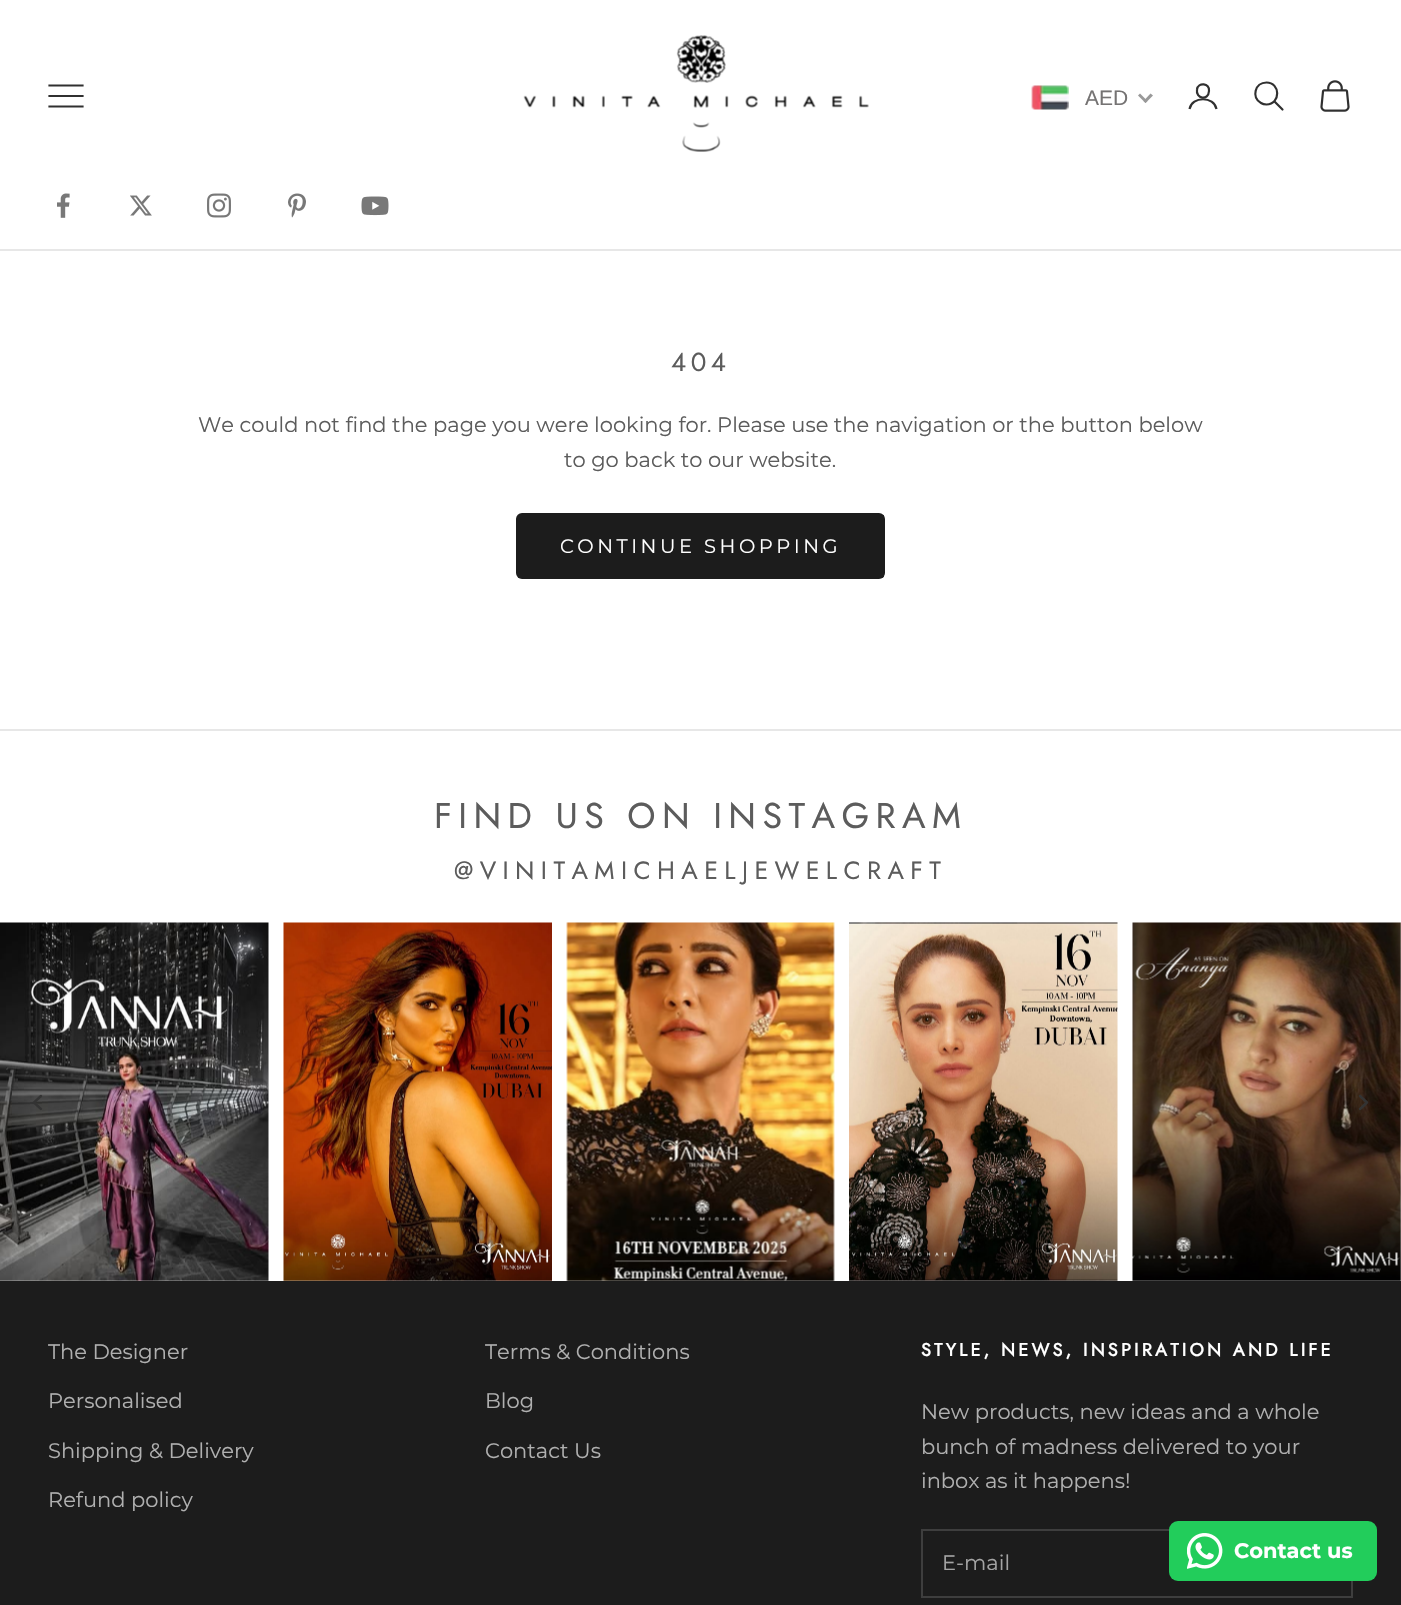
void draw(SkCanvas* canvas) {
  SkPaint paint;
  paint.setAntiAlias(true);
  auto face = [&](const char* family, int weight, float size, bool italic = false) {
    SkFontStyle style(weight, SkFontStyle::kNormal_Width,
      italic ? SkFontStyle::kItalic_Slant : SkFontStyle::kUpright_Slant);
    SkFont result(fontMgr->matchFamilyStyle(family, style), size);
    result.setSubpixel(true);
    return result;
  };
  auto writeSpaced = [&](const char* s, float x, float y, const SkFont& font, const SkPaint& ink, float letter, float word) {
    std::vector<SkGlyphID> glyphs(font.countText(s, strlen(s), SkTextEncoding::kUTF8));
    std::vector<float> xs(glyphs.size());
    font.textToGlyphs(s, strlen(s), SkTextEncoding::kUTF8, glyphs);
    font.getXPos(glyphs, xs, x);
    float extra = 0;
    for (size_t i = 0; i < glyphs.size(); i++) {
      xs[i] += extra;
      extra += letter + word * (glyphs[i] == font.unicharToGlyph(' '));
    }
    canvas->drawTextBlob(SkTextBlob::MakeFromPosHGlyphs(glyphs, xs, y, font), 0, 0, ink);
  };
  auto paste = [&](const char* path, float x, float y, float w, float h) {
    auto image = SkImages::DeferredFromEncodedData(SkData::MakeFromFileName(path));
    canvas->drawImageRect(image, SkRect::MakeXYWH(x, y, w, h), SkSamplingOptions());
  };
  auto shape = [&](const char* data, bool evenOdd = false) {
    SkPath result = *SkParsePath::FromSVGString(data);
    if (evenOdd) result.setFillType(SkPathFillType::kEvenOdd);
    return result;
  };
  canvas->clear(0xffffffff);
  paint.setColor(0xffe7e7e7);
  canvas->drawRect(SkRect::MakeXYWH(0, 249, 1401, 2), paint);
  paint.setStroke(true);
  paint.setStrokeWidth(2.2f);
  paint.setStrokeCap(SkPaint::kSquare_Cap);
  paint.setColor(0xff303030);
  canvas->drawPath(shape("M49.5 106.5H82.5M49.5 96H82.5M49.5 85.5H82.5"), paint);
  paste("img/1.png", 523, 35, 346, 117);
  paste("img/2.png", 1031, 85, 38, 25);
  paint.setStroke(false);
  paint.setColor(0xff999999);
  canvas->drawPath(shape("M1150.5 93.5L1153 95.5L1145.5 103L1143.5 101Z"), paint);
  canvas->drawPath(shape("M1140 93.5L1147.5 101L1145.5 103L1138 95.5Z"), paint);
  paint.setStroke(true);
  paint.setStrokeCap(SkPaint::kRound_Cap);
  paint.setStrokeJoin(SkPaint::kRound_Join);
  paint.setColor(0xff303030);
  canvas->drawPath(shape("M1209 91C1208.5 101 1195.5 99 1197 89.5C1198 82 1210 83 1209 91Z"), paint);
  paint.setStrokeCap(SkPaint::kButt_Cap);
  paint.setStrokeJoin(SkPaint::kMiter_Join);
  canvas->drawPath(shape("M1189.5 109C1192 96 1214 96 1216.5 109"), paint);
  canvas->drawPath(shape("M1266.5 82.5C1255 82.5 1251 97.5 1261 103C1262.5 104 1264.5 104.5 1266.5 104.5C1281 104 1280.5 82.5 1266.5 82.5Z"), paint);
  paint.setStrokeCap(SkPaint::kRound_Cap);
  canvas->drawPath(shape("M1275 102L1282.5 109.5"), paint);
  paste("img/3.png", 1320, 80, 30, 32);
  paste("img/4.png", 57, 193, 13, 25);
  paste("img/5.png", 130, 195, 22, 21);
  paste("img/6.png", 207, 193, 24, 25);
  paste("img/7.png", 288, 193, 18, 25);
  paste("img/8.png", 361, 196, 28, 20);
  canvas->save();
  canvas->clipPath(shape("M522 513H879C882.5 513 885 515.5 885 519V573C885 576.5 882.5 579 879 579H522C518.5 579 516 576.5 516 573V519C516 515.5 518.5 513 522 513Z"), true);
  paint.setStroke(false);
  paint.setColor(0xff1c1c1c);
  canvas->drawRect(SkRect::MakeXYWH(518, 515, 366, 63), paint);
  canvas->restore();
  paint.setStroke(true);
  paint.setStrokeWidth(2);
  paint.setStrokeCap(SkPaint::kButt_Cap);
  canvas->drawRoundRect(SkRect::MakeXYWH(517, 514, 367, 64), 5, 5, paint);
  paint.setStroke(false);
  paint.setColor(0xffe7e7e7);
  canvas->drawRect(SkRect::MakeXYWH(0, 729, 1401, 2), paint);
  paste("img/9.png", 0, 922, 269, 359);
  paste("img/10.png", 283, 922, 269, 359);
  paste("img/11.png", 566, 922, 269, 359);
  paste("img/12.png", 849, 922, 269, 359);
  paste("img/13.png", 1132, 922, 269, 359);
  paint.setStroke(true);
  paint.setStrokeWidth(2.4f);
  paint.setStrokeCap(SkPaint::kRound_Cap);
  paint.setStrokeJoin(SkPaint::kRound_Join);
  paint.setColor(0xff333333);
  canvas->drawPath(shape("M41 1109L34 1102.5L41 1096"), paint);
  canvas->drawPath(shape("M1360 1096L1367 1102.5L1360 1109"), paint);
  paint.setStroke(false);
  paint.setColor(0xff1c1c1c);
  canvas->drawRect(SkRect::MakeXYWH(0, 1281, 1401, 324), paint);
  paint.setStroke(true);
  paint.setStrokeWidth(2);
  paint.setStrokeCap(SkPaint::kButt_Cap);
  paint.setStrokeJoin(SkPaint::kMiter_Join);
  paint.setColor(0xff3e3e3e);
  canvas->drawRect(SkRect::MakeXYWH(922, 1530, 430, 67), paint);
  paint.setStroke(false);
  paint.setColor(0xff22cd5b);
  canvas->drawRoundRect(SkRect::MakeXYWH(1169, 1521, 208, 60), 9, 9, paint);
  paste("img/14.png", 1187, 1533, 36, 36);
  auto f0 = face("Liberation Sans", 400, 21);
  paint.setColor(0xff757373);
  canvas->drawString("AED", 1085, 105, f0, paint);
  auto f1 = face("Jost", 400, 26);
  paint.setColor(0xff5c5c5c);
  writeSpaced("404", 671, 371, f1, paint, 4.5f, 0);
  auto f2 = face("Montserrat", 400, 21);
  canvas->drawString("We could not find the page you were looking for. Please use the navigation or the button below", 198, 432, f2, paint);
  canvas->drawString("to go back to our website.", 564, 467, f2, paint);
  auto f3 = face("Montserrat", 400, 19.5f);
  paint.setColor(0xffffffff);
  writeSpaced("CONTINUE SHOPPING", 560, 553, f3, paint, 3.5f, 0);
  auto f4 = face("Jost", 400, 35.75f);
  paint.setColor(0xff5c5c5c);
  writeSpaced("FIND US ON INSTAGRAM", 434, 828, f4, paint, 6.4f, 0);
  auto f5 = face("Jost", 400, 25);
  writeSpaced("@VINITAMICHAELJEWELCRAFT", 454, 879, f5, paint, 6.4f, 0);
  paint.setColor(0xffb0b0b0);
  {
    const struct { const char* s; float x, y; } items[] = {
      {"The Designer", 48, 1359},
      {"Personalised", 48, 1408},
      {"Shipping & Delivery", 48, 1458},
      {"Refund policy", 48, 1507},
      {"Terms & Conditions", 485, 1359},
      {"Blog", 485, 1408},
      {"Contact Us", 485, 1458},
    };
    for (auto [s, x, y] : items) {
      canvas->drawString(s, x, y, f2, paint);
    }
  }
  auto f6 = face("Jost", 700, 18);
  paint.setColor(0xffffffff);
  writeSpaced("STYLE, NEWS, INSPIRATION AND LIFE", 921, 1356, f6, paint, 3.25f, 0);
  paint.setColor(0xffb0b0b0);
  {
    const struct { const char* s; float x, y; } items[] = {
      {"New products, new ideas and a whole", 921, 1419},
      {"bunch of madness delivered to your", 921, 1454},
      {"inbox as it happens!", 921, 1488},
    };
    for (auto [s, x, y] : items) {
      canvas->drawString(s, x, y, f2, paint);
    }
  }
  paint.setColor(0xffa4a4a4);
  canvas->drawString("E-mail", 942, 1570, f2, paint);
  auto f7 = face("Montserrat", 700, 21);
  paint.setColor(0xffffffff);
  canvas->drawString("Contact us", 1234, 1558, f7, paint);
}
